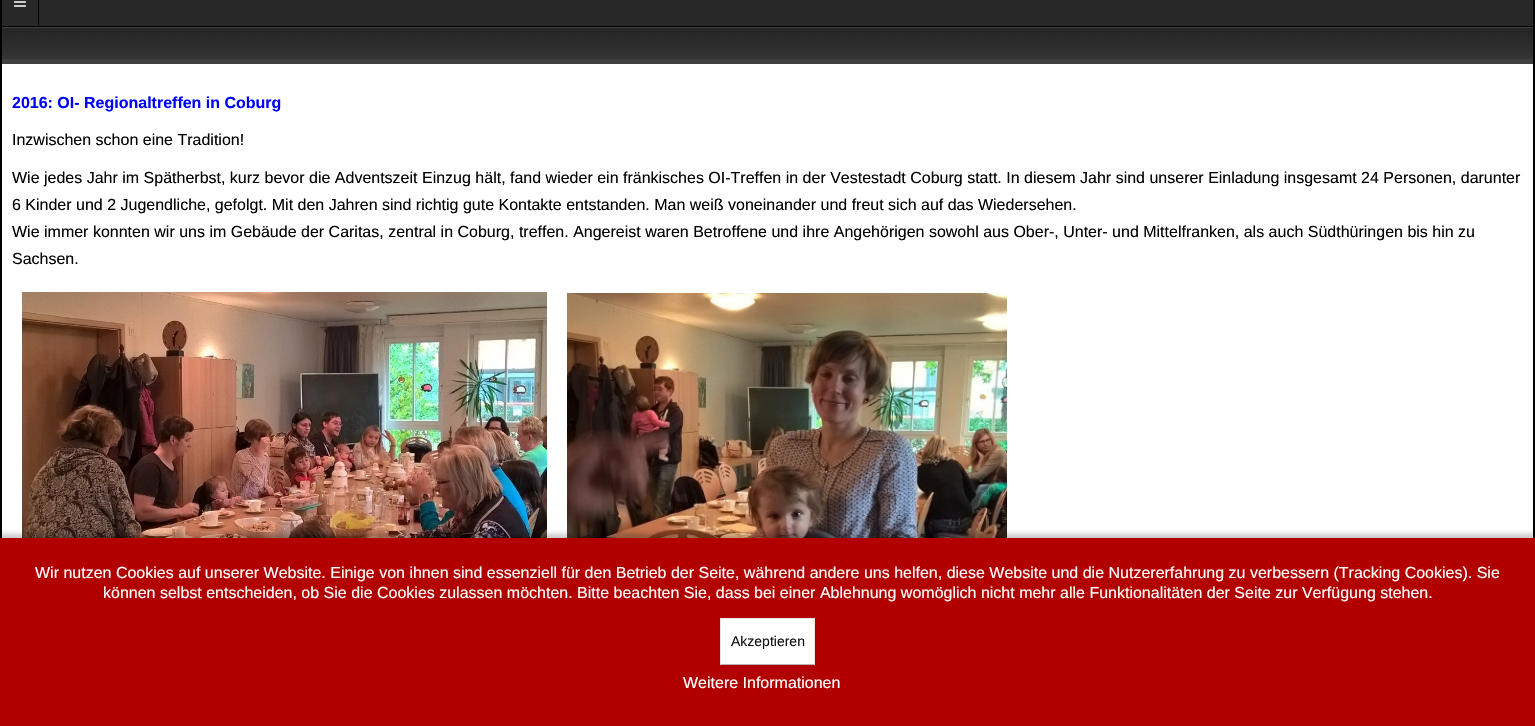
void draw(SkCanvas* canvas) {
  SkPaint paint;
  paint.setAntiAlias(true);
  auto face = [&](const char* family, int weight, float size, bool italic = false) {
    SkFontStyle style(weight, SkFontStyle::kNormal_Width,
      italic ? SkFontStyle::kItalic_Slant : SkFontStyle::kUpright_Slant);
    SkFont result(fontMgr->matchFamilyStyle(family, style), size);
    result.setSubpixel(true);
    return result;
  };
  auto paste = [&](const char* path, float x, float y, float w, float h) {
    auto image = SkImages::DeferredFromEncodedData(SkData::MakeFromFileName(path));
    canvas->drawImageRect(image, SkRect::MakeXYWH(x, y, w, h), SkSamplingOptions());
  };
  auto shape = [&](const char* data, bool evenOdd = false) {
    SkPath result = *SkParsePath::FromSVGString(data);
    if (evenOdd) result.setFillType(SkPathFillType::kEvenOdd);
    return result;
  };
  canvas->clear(0xff000000);
  {
    const struct { float x, y, w, h; SkColor color; } items[] = {
      {2, 64, 1531, 474, 0xffffffff},
      {2, 0, 1531, 26, 0xff282828},
      {38, 0, 1, 25, 0xff000000},
    };
    for (auto [x, y, w, h, color] : items) {
      paint.setColor(color);
      canvas->drawRect(SkRect::MakeXYWH(x, y, w, h), paint);
    }
  }
  paste("img/1.png", 14, 1, 12, 6);
  paste("img/2.png", 2, 26, 1531, 33);
  paint.setColor(0xff404040);
  canvas->drawRect(SkRect::MakeXYWH(2, 59, 1531, 5), paint);
  paste("img/3.png", 22, 292, 525, 246);
  paste("img/4.png", 567, 293, 440, 245);
  paint.setColor(0x36000000);
  paint.setMaskFilter(SkMaskFilter::MakeBlur(kNormal_SkBlurStyle, 2.5f));
  canvas->drawRect(SkRect::MakeXYWH(-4, 534, 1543, 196), paint);
  paint.setMaskFilter(nullptr);
  paint.setColor(0xffb20000);
  canvas->drawRect(SkRect::MakeXYWH(0, 538, 1535, 188), paint);
  paint.setColor(0xffffffff);
  canvas->drawRect(SkRect::MakeXYWH(720, 618, 95, 47), paint);
  paint.setColor(0xffe6e6e6);
  canvas->drawPath(shape("M720 618H815L814 619H721Z"), paint);
  paint.setColor(0x1a000000);
  canvas->drawPath(shape("M815 618V665L814 664V619Z"), paint);
  paint.setColor(0xffb3b3b3);
  canvas->drawPath(shape("M815 665H720L721 664H814Z"), paint);
  paint.setColor(0x1a000000);
  canvas->drawPath(shape("M720 665V618L721 619V664Z"), paint);
  auto f0 = face("Liberation Sans", 700, 16);
  paint.setColor(0xff0000ff);
  canvas->drawString("2016: OI- Regionaltreffen in Coburg", 12, 108, f0, paint);
  auto f1 = face("Liberation Sans", 400, 16);
  paint.setColor(0xff000000);
  {
    const struct { const char* s; float x, y; } items[] = {
      {"Inzwischen schon eine Tradition!", 12, 145},
      {"Wie jedes Jahr im Spätherbst, kurz bevor die Adventszeit Einzug hält, fand wieder ein fränkisches OI-Treffen in der Vestestadt Coburg statt. In diesem Jahr sind unserer Einladung insgesamt 24 Personen, darunter", 12, 183},
      {"6 Kinder und 2 Jugendliche, gefolgt. Mit den Jahren sind richtig gute Kontakte entstanden. Man weiß voneinander und freut sich auf das Wiedersehen.", 12, 210},
      {"Wie immer konnten wir uns im Gebäude der Caritas, zentral in Coburg, treffen. Angereist waren Betroffene und ihre Angehörigen sowohl aus Ober-, Unter- und Mittelfranken, als auch Südthüringen bis hin zu", 12, 237},
      {"Sachsen.", 12, 264},
    };
    for (auto [s, x, y] : items) {
      canvas->drawString(s, x, y, f1, paint);
    }
  }
  paint.setColor(0xffffffff);
  canvas->drawString("Wir nutzen Cookies auf unserer Website. Einige von ihnen sind essenziell für den Betrieb der Seite, während andere uns helfen, diese Website und die Nutzererfahrung zu verbessern (Tracking Cookies). Sie", 35, 578, f1, paint);
  canvas->drawString("können selbst entscheiden, ob Sie die Cookies zulassen möchten. Bitte beachten Sie, dass bei einer Ablehnung womöglich nicht mehr alle Funktionalitäten der Seite zur Verfügung stehen.", 103, 598, f1, paint);
  auto f2 = face("Liberation Sans", 400, 14);
  paint.setColor(0xff111111);
  canvas->drawString("Akzeptieren", 731, 646, f2, paint);
  paint.setColor(0xffffffff);
  canvas->drawString("Weitere Informationen", 683, 688, f1, paint);
}
